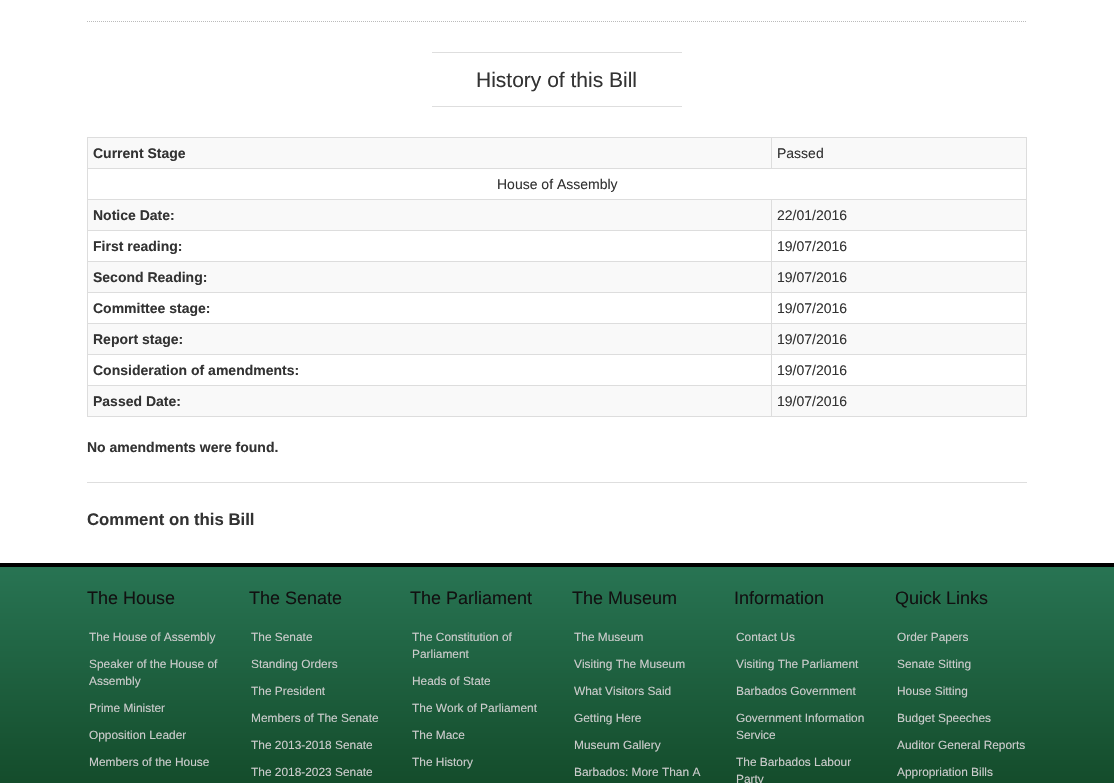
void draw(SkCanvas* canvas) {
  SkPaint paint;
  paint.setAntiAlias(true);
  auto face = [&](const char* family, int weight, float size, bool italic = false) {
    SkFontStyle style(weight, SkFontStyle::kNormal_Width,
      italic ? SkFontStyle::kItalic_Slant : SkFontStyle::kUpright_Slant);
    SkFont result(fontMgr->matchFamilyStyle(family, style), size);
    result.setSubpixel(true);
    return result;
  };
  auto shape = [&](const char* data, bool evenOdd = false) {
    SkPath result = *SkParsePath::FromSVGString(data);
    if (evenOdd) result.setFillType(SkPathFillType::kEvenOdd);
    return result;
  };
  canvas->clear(0xffffffff);
  paint.setStroke(true);
  paint.setStrokeWidth(1);
  paint.setColor(0xffbbbbbb);
  paint.setPathEffect(SkDashPathEffect::Make({{1, 1}}, 0));
  canvas->drawPath(shape("M87 21.5H1027"), paint);
  paint.setPathEffect(nullptr);
  paint.setStroke(false);
  {
    const struct { float x, y, w, h; SkColor color; } items[] = {
      {432, 52, 250, 1, 0xffdedede},
      {432, 106, 250, 1, 0xffdedede},
      {87, 137, 940, 1, 0xffdddddd},
      {1026, 137, 1, 280, 0xffdddddd},
      {87, 416, 940, 1, 0xffdddddd},
      {87, 137, 1, 280, 0xffdddddd},
      {88, 138, 938, 30, 0xfff9f9f9},
      {87, 168, 940, 1, 0xffdddddd},
      {771, 137, 1, 32, 0xffdddddd},
      {88, 200, 938, 30, 0xfff9f9f9},
      {771, 199, 256, 1, 0xffdddddd},
      {771, 230, 256, 1, 0xffdddddd},
      {771, 261, 256, 1, 0xffdddddd},
      {88, 262, 938, 30, 0xfff9f9f9},
      {771, 292, 256, 1, 0xffdddddd},
      {771, 323, 256, 1, 0xffdddddd},
      {88, 324, 938, 30, 0xfff9f9f9},
      {771, 354, 256, 1, 0xffdddddd},
      {771, 385, 256, 1, 0xffdddddd},
      {88, 386, 938, 30, 0xfff9f9f9},
      {771, 385, 1, 32, 0xffdddddd},
      {87, 385, 685, 1, 0xffdddddd},
      {771, 354, 1, 32, 0xffdddddd},
      {87, 354, 685, 1, 0xffdddddd},
      {771, 323, 1, 32, 0xffdddddd},
      {87, 323, 685, 1, 0xffdddddd},
      {771, 292, 1, 32, 0xffdddddd},
      {87, 292, 685, 1, 0xffdddddd},
      {771, 261, 1, 32, 0xffdddddd},
      {87, 261, 685, 1, 0xffdddddd},
      {771, 230, 1, 32, 0xffdddddd},
      {87, 230, 685, 1, 0xffdddddd},
      {771, 199, 1, 32, 0xffdddddd},
      {87, 199, 685, 1, 0xffdddddd},
      {87, 482, 940, 1, 0xffdedede},
    };
    for (auto [x, y, w, h, color] : items) {
      paint.setColor(color);
      canvas->drawRect(SkRect::MakeXYWH(x, y, w, h), paint);
    }
  }
  {
    const SkColor colors[] = {0xff287453, 0xff083413};
    const float stops[] = {0, 1};
    const SkPoint ends[] = {{557, 567}, {557, 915}};
    paint.setShader(SkGradientShader::MakeLinear(ends, colors, stops, 2, SkTileMode::kClamp));
    paint.setAlpha(255);
  }
  canvas->drawRect(SkRect::MakeXYWH(0, 567, 1114, 216), paint);
  paint.setShader(nullptr);
  paint.setColor(0xff000000);
  canvas->drawRect(SkRect::MakeXYWH(0, 563, 1114, 4), paint);
  auto f0 = face("Liberation Sans", 400, 21);
  paint.setColor(0xff333333);
  canvas->drawString("History of this Bill", 476, 87, f0, paint);
  auto f1 = face("Liberation Sans", 700, 14);
  canvas->drawString("Current Stage", 93, 158, f1, paint);
  auto f2 = face("Liberation Sans", 400, 14);
  canvas->drawString("Passed", 777, 158, f2, paint);
  canvas->drawString("House of Assembly", 497, 189, f2, paint);
  canvas->drawString("Notice Date:", 93, 220, f1, paint);
  canvas->drawString("22/01/2016", 777, 220, f2, paint);
  canvas->drawString("First reading:", 93, 251, f1, paint);
  canvas->drawString("19/07/2016", 777, 251, f2, paint);
  canvas->drawString("Second Reading:", 93, 282, f1, paint);
  canvas->drawString("19/07/2016", 777, 282, f2, paint);
  canvas->drawString("Committee stage:", 93, 313, f1, paint);
  canvas->drawString("19/07/2016", 777, 313, f2, paint);
  canvas->drawString("Report stage:", 93, 344, f1, paint);
  canvas->drawString("19/07/2016", 777, 344, f2, paint);
  canvas->drawString("Consideration of amendments:", 93, 375, f1, paint);
  canvas->drawString("19/07/2016", 777, 375, f2, paint);
  canvas->drawString("Passed Date:", 93, 406, f1, paint);
  canvas->drawString("19/07/2016", 777, 406, f2, paint);
  canvas->drawString("No amendments were found.", 87, 452, f1, paint);
  auto f3 = face("Liberation Sans", 700, 16.75f);
  canvas->drawString("Comment on this Bill", 87, 525, f3, paint);
  auto f4 = face("Liberation Sans", 400, 18);
  paint.setColor(0xff111111);
  canvas->drawString("The House", 87, 604, f4, paint);
  auto f5 = face("Liberation Sans", 400, 11.9f);
  paint.setColor(0xffcccccc);
  {
    const struct { const char* s; float x, y; } items[] = {
      {"The House of Assembly", 89, 641},
      {"Speaker of the House of", 89, 668},
      {"Assembly", 89, 685},
      {"Prime Minister", 89, 712},
      {"Opposition Leader", 89, 739},
      {"Members of the House", 89, 766},
    };
    for (auto [s, x, y] : items) {
      canvas->drawString(s, x, y, f5, paint);
    }
  }
  paint.setColor(0xff111111);
  canvas->drawString("The Senate", 249, 604, f4, paint);
  paint.setColor(0xffcccccc);
  {
    const struct { const char* s; float x, y; } items[] = {
      {"The Senate", 251, 641},
      {"Standing Orders", 251, 668},
      {"The President", 251, 695},
      {"Members of The Senate", 251, 722},
      {"The 2013-2018 Senate", 251, 749},
      {"The 2018-2023 Senate", 251, 776},
    };
    for (auto [s, x, y] : items) {
      canvas->drawString(s, x, y, f5, paint);
    }
  }
  paint.setColor(0xff111111);
  canvas->drawString("The Parliament", 410, 604, f4, paint);
  paint.setColor(0xffcccccc);
  {
    const struct { const char* s; float x, y; } items[] = {
      {"The Constitution of", 412, 641},
      {"Parliament", 412, 658},
      {"Heads of State", 412, 685},
      {"The Work of Parliament", 412, 712},
      {"The Mace", 412, 739},
      {"The History", 412, 766},
    };
    for (auto [s, x, y] : items) {
      canvas->drawString(s, x, y, f5, paint);
    }
  }
  paint.setColor(0xff111111);
  canvas->drawString("The Museum", 572, 604, f4, paint);
  paint.setColor(0xffcccccc);
  {
    const struct { const char* s; float x, y; } items[] = {
      {"The Museum", 574, 641},
      {"Visiting The Museum", 574, 668},
      {"What Visitors Said", 574, 695},
      {"Getting Here", 574, 722},
      {"Museum Gallery", 574, 749},
      {"Barbados: More Than A", 574, 776},
    };
    for (auto [s, x, y] : items) {
      canvas->drawString(s, x, y, f5, paint);
    }
  }
  paint.setColor(0xff111111);
  canvas->drawString("Information", 734, 604, f4, paint);
  paint.setColor(0xffcccccc);
  {
    const struct { const char* s; float x, y; } items[] = {
      {"Contact Us", 736, 641},
      {"Visiting The Parliament", 736, 668},
      {"Barbados Government", 736, 695},
      {"Government Information", 736, 722},
      {"Service", 736, 739},
      {"The Barbados Labour", 736, 766},
      {"Party", 736, 783},
    };
    for (auto [s, x, y] : items) {
      canvas->drawString(s, x, y, f5, paint);
    }
  }
  paint.setColor(0xff111111);
  canvas->drawString("Quick Links", 895, 604, f4, paint);
  paint.setColor(0xffcccccc);
  {
    const struct { const char* s; float x, y; } items[] = {
      {"Order Papers", 897, 641},
      {"Senate Sitting", 897, 668},
      {"House Sitting", 897, 695},
      {"Budget Speeches", 897, 722},
      {"Auditor General Reports", 897, 749},
      {"Appropriation Bills", 897, 776},
    };
    for (auto [s, x, y] : items) {
      canvas->drawString(s, x, y, f5, paint);
    }
  }
}
